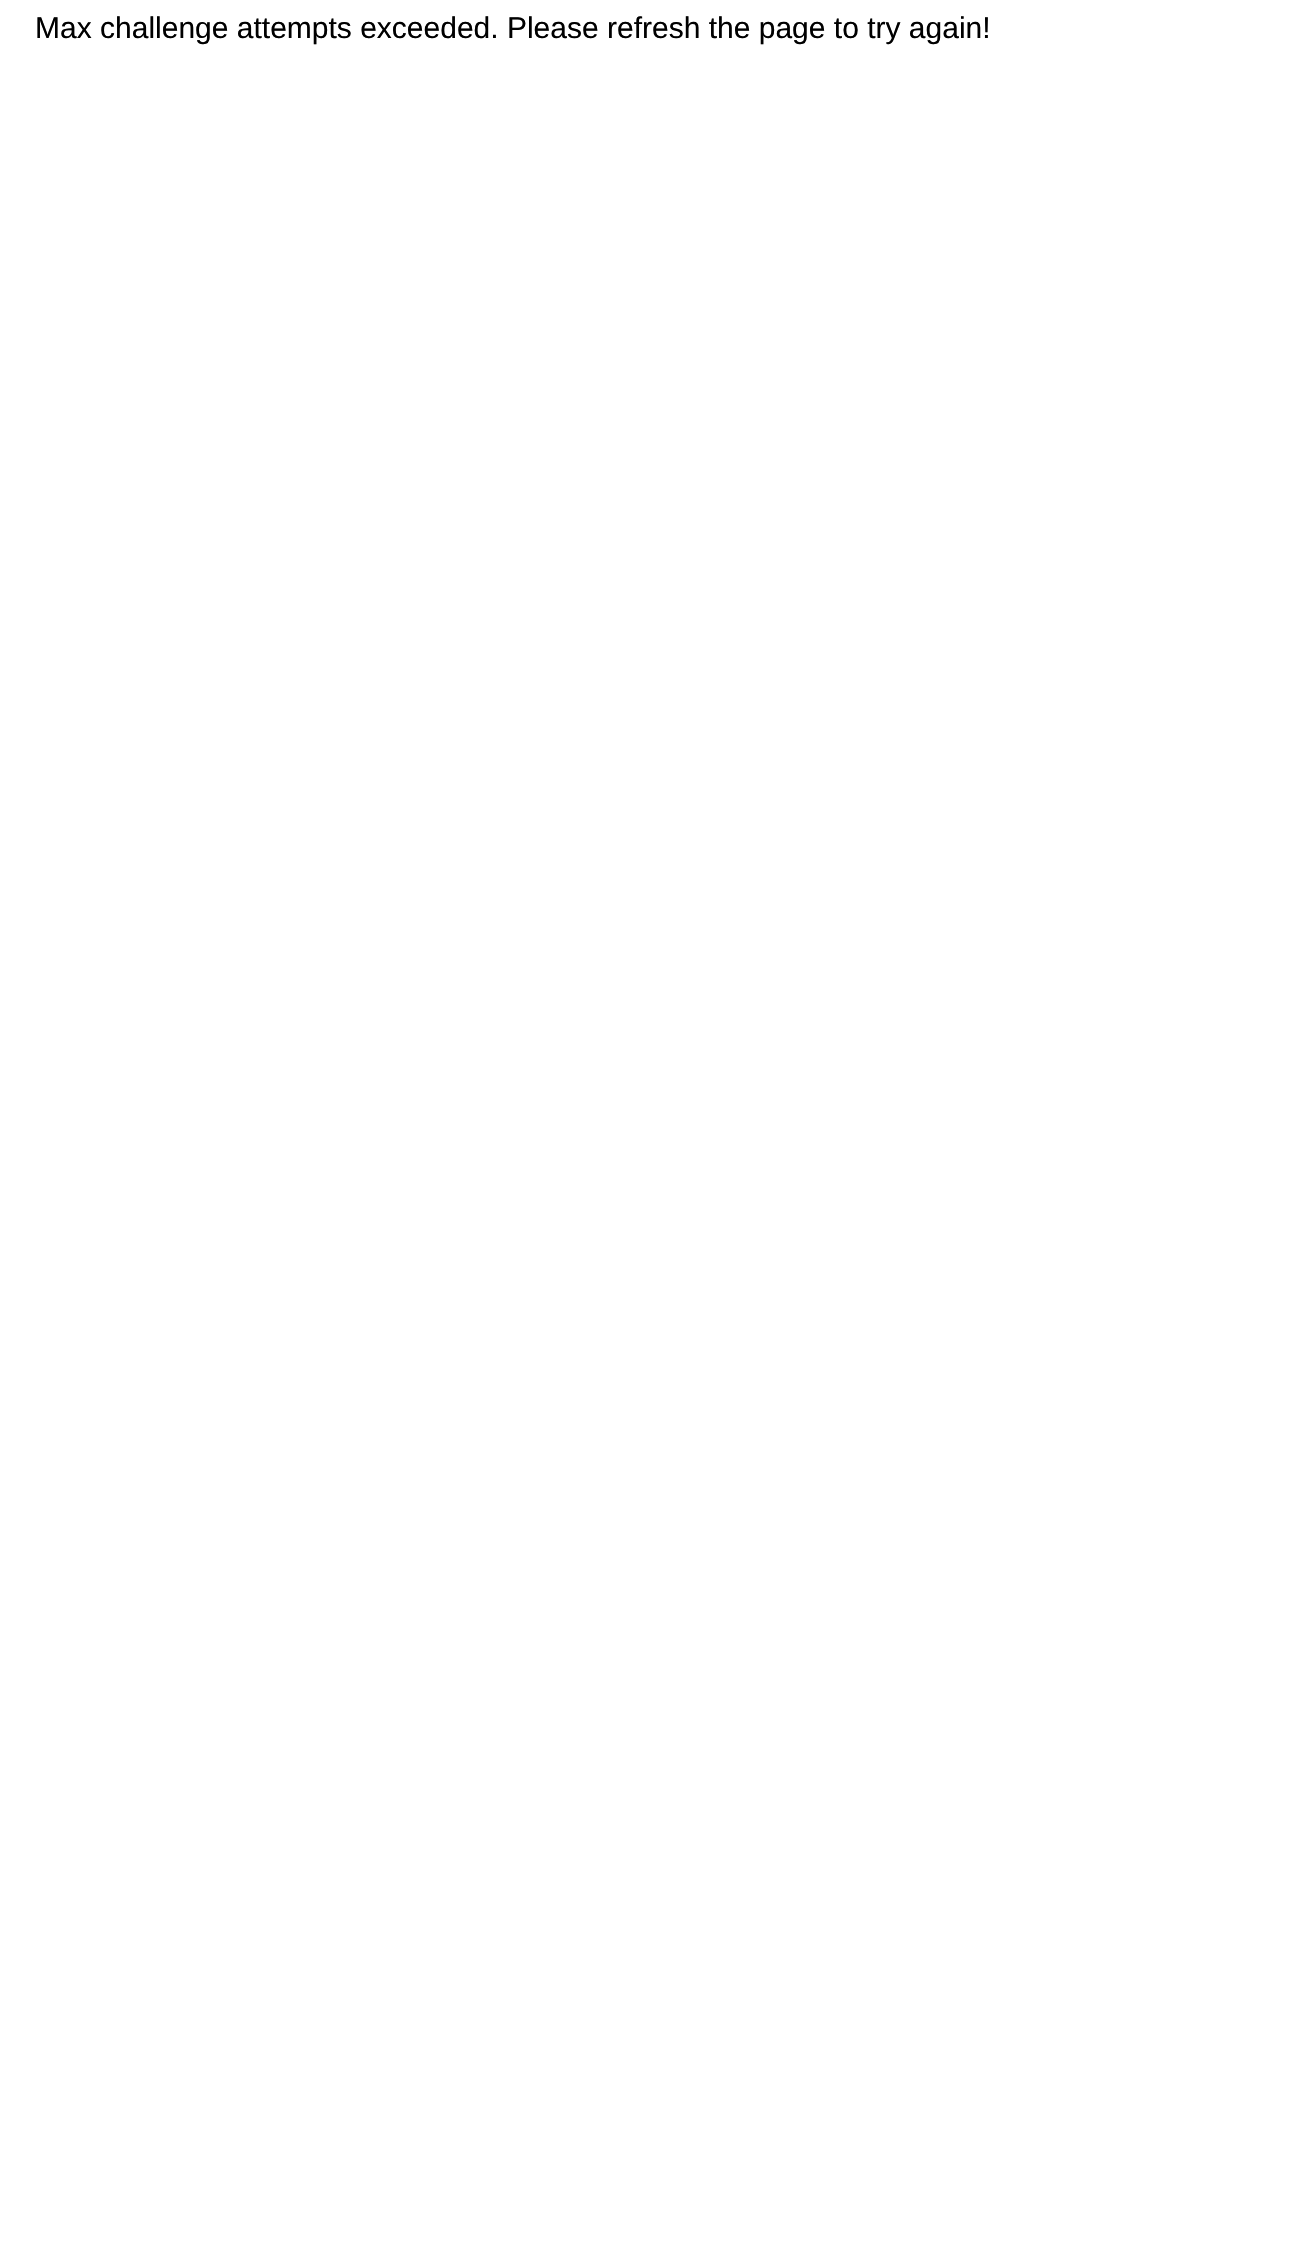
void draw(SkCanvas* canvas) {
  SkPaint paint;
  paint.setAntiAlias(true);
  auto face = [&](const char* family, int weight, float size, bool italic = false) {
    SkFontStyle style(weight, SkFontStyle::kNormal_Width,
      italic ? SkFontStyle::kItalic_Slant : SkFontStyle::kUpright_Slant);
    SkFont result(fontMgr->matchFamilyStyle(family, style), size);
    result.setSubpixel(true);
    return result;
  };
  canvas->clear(0xffffffff);
  auto f0 = face("Liberation Sans", 400, 30);
  paint.setColor(0xff000000);
  canvas->drawString("Max challenge attempts exceeded. Please refresh the page to try again!", 35, 38, f0, paint);
}
